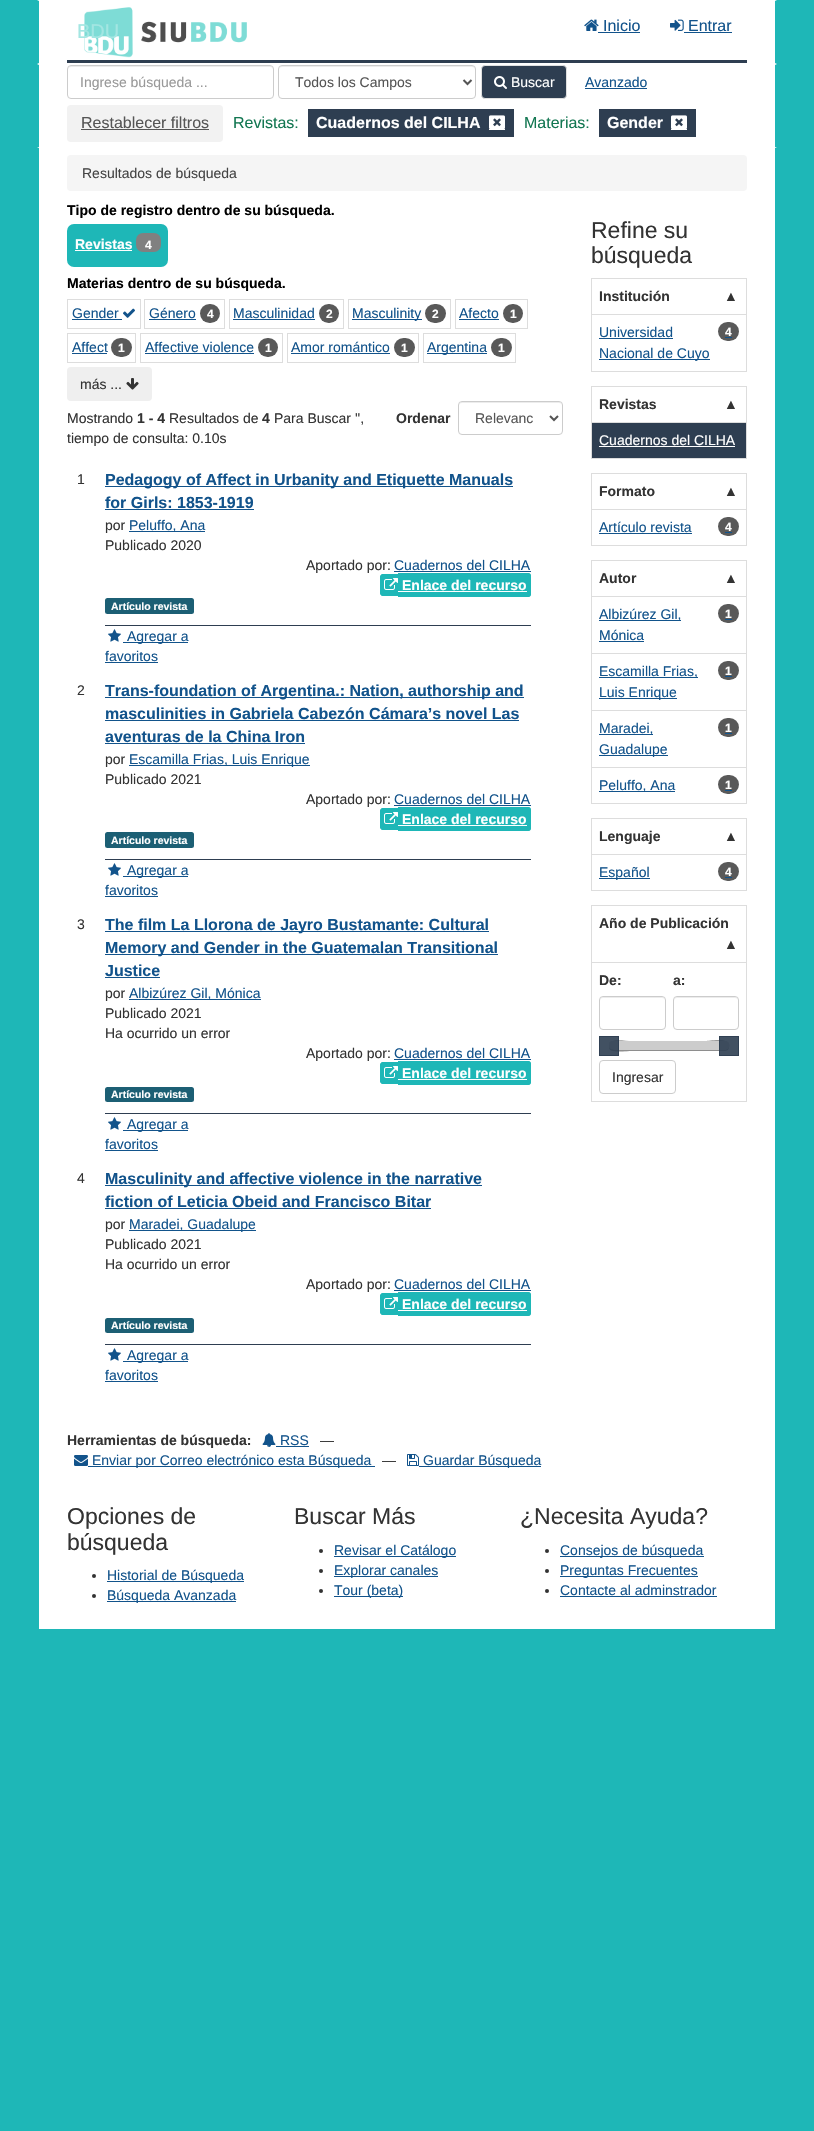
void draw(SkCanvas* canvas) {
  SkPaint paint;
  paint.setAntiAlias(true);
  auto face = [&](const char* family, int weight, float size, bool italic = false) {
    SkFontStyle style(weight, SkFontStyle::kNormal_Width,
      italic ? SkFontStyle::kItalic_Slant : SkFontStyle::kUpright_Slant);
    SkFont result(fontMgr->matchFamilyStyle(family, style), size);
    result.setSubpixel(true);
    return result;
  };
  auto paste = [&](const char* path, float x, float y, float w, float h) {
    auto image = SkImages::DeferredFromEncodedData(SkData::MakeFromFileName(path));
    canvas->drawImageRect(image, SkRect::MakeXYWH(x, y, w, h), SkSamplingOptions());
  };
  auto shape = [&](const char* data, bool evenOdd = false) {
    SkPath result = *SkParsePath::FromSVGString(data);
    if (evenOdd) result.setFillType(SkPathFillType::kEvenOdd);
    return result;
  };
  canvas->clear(0xff1eb7b7);
  paint.setColor(0xffffffff);
  canvas->drawRect(SkRect::MakeXYWH(37, 0, 740, 148), paint);
  paint.setColor(0xff1eb7b7);
  canvas->drawPath(shape("M777 0V64L775 63V1Z"), paint);
  canvas->drawPath(shape("M37 64V0L39 1V63Z"), paint);
  paste("img/1.png", 84, 7, 163, 51);
  paint.setColor(0xff2e3e51);
  canvas->drawRect(SkRect::MakeXYWH(67, 60, 680, 3), paint);
  paste("img/2.png", 584, 19, 15, 12);
  paint.setColor(0xff12538b);
  canvas->drawRect(SkRect::MakeXYWH(598, 32, 42, 1), paint);
  paste("img/3.png", 670, 19, 14, 12);
  canvas->drawRect(SkRect::MakeXYWH(684, 32, 48, 1), paint);
  paint.setColor(0xff1eb7b7);
  canvas->drawPath(shape("M777 64V148L775 147V65Z"), paint);
  canvas->drawPath(shape("M37 148V64L39 65V147Z"), paint);
  paint.setColor(0xffececec);
  canvas->drawPath(shape("M71 67H270C272 67 273 68 273 70C273 68 272 66 270 66H71C69 66 68 68 68 70C68 68 69 67 71 67Z"), paint);
  paint.setStroke(true);
  paint.setStrokeWidth(1);
  paint.setColor(0xffcccccc);
  canvas->drawRoundRect(SkRect::MakeXYWH(67.5f, 65.5f, 206, 33), 3.5f, 3.5f, paint);
  paint.setStroke(false);
  paint.setColor(0xffececec);
  canvas->drawPath(shape("M282 67H472C474 67 475 68 475 70C475 68 474 66 472 66H282C280 66 279 68 279 70C279 68 280 67 282 67Z"), paint);
  paint.setStroke(true);
  paint.setColor(0xffcccccc);
  canvas->drawRoundRect(SkRect::MakeXYWH(278.5f, 65.5f, 197, 33), 3.5f, 3.5f, paint);
  paint.setStrokeWidth(2);
  paint.setColor(0xff555555);
  canvas->drawPath(shape("M463.5 80L467.5 84L471.5 80"), paint);
  paint.setStroke(false);
  paint.setColor(0xff2e3e51);
  canvas->drawRoundRect(SkRect::MakeXYWH(481.5f, 65.5f, 85, 33), 3.5f, 3.5f, paint);
  paint.setStroke(true);
  paint.setStrokeWidth(1);
  paint.setColor(0xffe0e0e0);
  canvas->drawRoundRect(SkRect::MakeXYWH(481.5f, 65.5f, 85, 33), 3.5f, 3.5f, paint);
  paste("img/4.png", 494, 76, 13, 13);
  paint.setStroke(false);
  paint.setColor(0xff12538b);
  canvas->drawRect(SkRect::MakeXYWH(585, 88, 62, 1), paint);
  paint.setColor(0xfff2f2f2);
  canvas->drawRoundRect(SkRect::MakeXYWH(67, 105, 156, 37), 4, 4, paint);
  paint.setColor(0xff555555);
  canvas->drawRect(SkRect::MakeXYWH(81, 129, 128, 1), paint);
  paint.setColor(0xff2e3e51);
  canvas->drawRect(SkRect::MakeXYWH(308, 109, 206, 28), paint);
  paste("img/5.png", 489, 115, 16, 14);
  paint.setColor(0xffffffff);
  canvas->drawRect(SkRect::MakeXYWH(489, 129, 16, 1), paint);
  paint.setColor(0xff2e3e51);
  canvas->drawRect(SkRect::MakeXYWH(599, 109, 97, 28), paint);
  paste("img/5.png", 671, 115, 16, 14);
  paint.setColor(0xffffffff);
  canvas->drawRect(SkRect::MakeXYWH(671, 129, 16, 1), paint);
  canvas->drawRect(SkRect::MakeXYWH(39, 148, 736, 1481), paint);
  paint.setColor(0xfff5f5f5);
  canvas->drawRoundRect(SkRect::MakeXYWH(67, 155, 680, 36), 4, 4, paint);
  paint.setColor(0xff1eb7b7);
  canvas->drawRoundRect(SkRect::MakeXYWH(68, 225, 99, 41), 6, 6, paint);
  paint.setStroke(true);
  paint.setStrokeWidth(2);
  canvas->drawRoundRect(SkRect::MakeXYWH(68, 225, 99, 41), 6, 6, paint);
  paint.setStroke(false);
  paint.setColor(0xffffffff);
  canvas->drawRect(SkRect::MakeXYWH(75, 250, 57, 1), paint);
  paint.setColor(0xff808080);
  canvas->drawRoundRect(SkRect::MakeXYWH(137, 234, 23, 17), 6, 6, paint);
  paint.setStroke(true);
  canvas->drawRoundRect(SkRect::MakeXYWH(137, 234, 23, 17), 6, 6, paint);
  paint.setStrokeWidth(1);
  paint.setColor(0xffdddddd);
  canvas->drawRect(SkRect::MakeXYWH(67.5f, 299.5f, 73, 29), paint);
  paint.setStroke(false);
  paint.setColor(0xff12538b);
  canvas->drawRect(SkRect::MakeXYWH(72, 319, 50, 1), paint);
  paste("img/6.png", 123, 308, 12, 10);
  paint.setStroke(true);
  paint.setColor(0xffdddddd);
  canvas->drawRect(SkRect::MakeXYWH(144.5f, 299.5f, 80, 29), paint);
  paint.setStroke(false);
  paint.setColor(0xff12538b);
  canvas->drawRect(SkRect::MakeXYWH(149, 319, 47, 1), paint);
  paint.setColor(0xff595959);
  canvas->drawRoundRect(SkRect::MakeXYWH(200, 304, 20, 19), 9.5f, 9.5f, paint);
  paint.setStroke(true);
  paint.setColor(0xffdddddd);
  canvas->drawRect(SkRect::MakeXYWH(229.5f, 299.5f, 114, 29), paint);
  paint.setStroke(false);
  paint.setColor(0xff12538b);
  canvas->drawRect(SkRect::MakeXYWH(233, 319, 82, 1), paint);
  paint.setColor(0xff595959);
  canvas->drawRoundRect(SkRect::MakeXYWH(319, 304, 20, 19), 9.5f, 9.5f, paint);
  paint.setStroke(true);
  paint.setColor(0xffdddddd);
  canvas->drawRect(SkRect::MakeXYWH(348.5f, 299.5f, 102, 29), paint);
  paint.setStroke(false);
  paint.setColor(0xff12538b);
  canvas->drawRect(SkRect::MakeXYWH(352, 319, 70, 1), paint);
  paint.setColor(0xff595959);
  canvas->drawRoundRect(SkRect::MakeXYWH(425, 304, 21, 19), 9.5f, 9.5f, paint);
  paint.setStroke(true);
  paint.setColor(0xffdddddd);
  canvas->drawRect(SkRect::MakeXYWH(455.5f, 299.5f, 72, 29), paint);
  paint.setStroke(false);
  paint.setColor(0xff12538b);
  canvas->drawRect(SkRect::MakeXYWH(459, 319, 40, 1), paint);
  paint.setColor(0xff595959);
  canvas->drawRoundRect(SkRect::MakeXYWH(503, 304, 20, 19), 9.5f, 9.5f, paint);
  paint.setStroke(true);
  paint.setColor(0xffdddddd);
  canvas->drawRect(SkRect::MakeXYWH(67.5f, 333.5f, 68, 29), paint);
  paint.setStroke(false);
  paint.setColor(0xff12538b);
  canvas->drawRect(SkRect::MakeXYWH(72, 353, 35, 1), paint);
  paint.setColor(0xff595959);
  canvas->drawRoundRect(SkRect::MakeXYWH(111, 338, 21, 19), 9.5f, 9.5f, paint);
  paint.setStroke(true);
  paint.setColor(0xffdddddd);
  canvas->drawRect(SkRect::MakeXYWH(140.5f, 333.5f, 142, 29), paint);
  paint.setStroke(false);
  paint.setColor(0xff12538b);
  canvas->drawRect(SkRect::MakeXYWH(145, 353, 109, 1), paint);
  paint.setColor(0xff595959);
  canvas->drawRoundRect(SkRect::MakeXYWH(258, 338, 20, 19), 9.5f, 9.5f, paint);
  paint.setStroke(true);
  paint.setColor(0xffdddddd);
  canvas->drawRect(SkRect::MakeXYWH(287.5f, 333.5f, 131, 29), paint);
  paint.setStroke(false);
  paint.setColor(0xff12538b);
  canvas->drawRect(SkRect::MakeXYWH(291, 353, 99, 1), paint);
  paint.setColor(0xff595959);
  canvas->drawRoundRect(SkRect::MakeXYWH(394, 338, 21, 19), 9.5f, 9.5f, paint);
  paint.setStroke(true);
  paint.setColor(0xffdddddd);
  canvas->drawRect(SkRect::MakeXYWH(423.5f, 333.5f, 92, 29), paint);
  paint.setStroke(false);
  paint.setColor(0xff12538b);
  canvas->drawRect(SkRect::MakeXYWH(427, 353, 60, 1), paint);
  paint.setColor(0xff595959);
  canvas->drawRoundRect(SkRect::MakeXYWH(491, 338, 21, 19), 9.5f, 9.5f, paint);
  paint.setColor(0xffefefef);
  canvas->drawRoundRect(SkRect::MakeXYWH(67, 367, 85, 34), 4, 4, paint);
  paste("img/7.png", 126, 378, 13, 12);
  paint.setColor(0xffececec);
  canvas->drawPath(shape("M462 403H559C561 403 562 404 562 406C562 398 546 402 543 402H478C475 402 459 398 459 406C459 404 460 403 462 403Z"), paint);
  paint.setStroke(true);
  paint.setColor(0xffcccccc);
  canvas->drawRoundRect(SkRect::MakeXYWH(458.5f, 401.5f, 104, 33), 3.5f, 3.5f, paint);
  paint.setStrokeWidth(2);
  paint.setColor(0xff555555);
  canvas->drawPath(shape("M550 416L554 420L558 416"), paint);
  paint.setStroke(false);
  {
    const struct { float x, y, w, h; SkColor color; } items[] = {
      {105, 625, 426, 1, 0xff2e3e51},
      {105, 486, 408, 1, 0xff12538b},
      {105, 509, 149, 1, 0xff12538b},
      {129, 531, 76, 1, 0xff12538b},
      {394, 571, 137, 1, 0xff12538b},
    };
    for (auto [x, y, w, h, color] : items) {
      paint.setColor(color);
      canvas->drawRect(SkRect::MakeXYWH(x, y, w, h), paint);
    }
  }
  paint.setColor(0xff1eb7b7);
  canvas->drawPath(shape("M383 574H398V596H383C381.5 596 380 594.5 380 593V577C380 575.5 381.5 574 383 574Z"), paint);
  canvas->drawPath(shape("M383 574H398V596H383C381.5 596 380 594.5 380 593V577C380 575.5 381.5 574 383 574ZM383 576H398V594H383C382.5 594 382 593.5 382 593V577C382 576.5 382.5 576 383 576Z", true), paint);
  canvas->drawPath(shape("M398 573H528C529.5 573 531 574.5 531 576V594C531 595.5 529.5 597 528 597H398Z"), paint);
  canvas->drawPath(shape("M398 573H528C530 573 531 574 531 576V594C531 596 530 597 528 597H398ZM398 575H528C529 575 529 575 529 576V594C529 595 529 595 528 595H398Z", true), paint);
  paste("img/8.png", 384, 578, 14, 12);
  paint.setColor(0xffffffff);
  canvas->drawRect(SkRect::MakeXYWH(398, 591, 129, 1), paint);
  paint.setColor(0xff1c5f74);
  canvas->drawRoundRect(SkRect::MakeXYWH(105, 598, 89, 16), 2.5f, 2.5f, paint);
  paste("img/9.png", 108, 629, 13, 13);
  {
    const struct { float x, y, w, h; SkColor color; } items[] = {
      {123, 642, 65, 1, 0xff12538b},
      {105, 662, 53, 1, 0xff12538b},
      {105, 859, 426, 1, 0xff2e3e51},
      {105, 697, 419, 1, 0xff12538b},
      {105, 720, 414, 1, 0xff12538b},
      {105, 743, 200, 1, 0xff12538b},
      {129, 765, 181, 1, 0xff12538b},
      {394, 805, 137, 1, 0xff12538b},
    };
    for (auto [x, y, w, h, color] : items) {
      paint.setColor(color);
      canvas->drawRect(SkRect::MakeXYWH(x, y, w, h), paint);
    }
  }
  paint.setColor(0xff1eb7b7);
  canvas->drawPath(shape("M383 808H398V830H383C381.5 830 380 828.5 380 827V811C380 809.5 381.5 808 383 808Z"), paint);
  canvas->drawPath(shape("M383 808H398V830H383C381.5 830 380 828.5 380 827V811C380 809.5 381.5 808 383 808ZM383 810H398V828H383C382.5 828 382 827.5 382 827V811C382 810.5 382.5 810 383 810Z", true), paint);
  canvas->drawPath(shape("M398 807H528C529.5 807 531 808.5 531 810V828C531 829.5 529.5 831 528 831H398Z"), paint);
  canvas->drawPath(shape("M398 807H528C530 807 531 808 531 810V828C531 830 530 831 528 831H398ZM398 809H528C529 809 529 809 529 810V828C529 829 529 829 528 829H398Z", true), paint);
  paste("img/8.png", 384, 812, 14, 12);
  paint.setColor(0xffffffff);
  canvas->drawRect(SkRect::MakeXYWH(398, 825, 129, 1), paint);
  paint.setColor(0xff1c5f74);
  canvas->drawRoundRect(SkRect::MakeXYWH(105, 832, 89, 16), 2.5f, 2.5f, paint);
  paste("img/9.png", 108, 863, 13, 13);
  {
    const struct { float x, y, w, h; SkColor color; } items[] = {
      {123, 876, 65, 1, 0xff12538b},
      {105, 896, 53, 1, 0xff12538b},
      {105, 1113, 426, 1, 0xff2e3e51},
      {105, 931, 384, 1, 0xff12538b},
      {105, 954, 393, 1, 0xff12538b},
      {105, 977, 55, 1, 0xff12538b},
      {129, 999, 132, 1, 0xff12538b},
      {394, 1059, 137, 1, 0xff12538b},
    };
    for (auto [x, y, w, h, color] : items) {
      paint.setColor(color);
      canvas->drawRect(SkRect::MakeXYWH(x, y, w, h), paint);
    }
  }
  paint.setColor(0xff1eb7b7);
  canvas->drawPath(shape("M383 1062H398V1084H383C381.5 1084 380 1082.5 380 1081V1065C380 1063.5 381.5 1062 383 1062Z"), paint);
  canvas->drawPath(shape("M383 1062H398V1084H383C381.5 1084 380 1082.5 380 1081V1065C380 1063.5 381.5 1062 383 1062ZM383 1064H398V1082H383C382.5 1082 382 1081.5 382 1081V1065C382 1064.5 382.5 1064 383 1064Z", true), paint);
  canvas->drawPath(shape("M398 1061H528C529.5 1061 531 1062.5 531 1064V1082C531 1083.5 529.5 1085 528 1085H398Z"), paint);
  canvas->drawPath(shape("M398 1061H528C530 1061 531 1062 531 1064V1082C531 1084 530 1085 528 1085H398ZM398 1063H528C529 1063 529 1063 529 1064V1082C529 1083 529 1083 528 1083H398Z", true), paint);
  paste("img/8.png", 384, 1066, 14, 12);
  paint.setColor(0xffffffff);
  canvas->drawRect(SkRect::MakeXYWH(398, 1079, 129, 1), paint);
  paint.setColor(0xff1c5f74);
  canvas->drawRoundRect(SkRect::MakeXYWH(105, 1087, 89, 15), 2.5f, 2.5f, paint);
  paste("img/9.png", 108, 1117, 13, 13);
  {
    const struct { float x, y, w, h; SkColor color; } items[] = {
      {123, 1130, 65, 1, 0xff12538b},
      {105, 1150, 53, 1, 0xff12538b},
      {105, 1344, 426, 1, 0xff2e3e51},
      {105, 1185, 377, 1, 0xff12538b},
      {105, 1208, 326, 1, 0xff12538b},
      {129, 1230, 127, 1, 0xff12538b},
      {394, 1290, 137, 1, 0xff12538b},
    };
    for (auto [x, y, w, h, color] : items) {
      paint.setColor(color);
      canvas->drawRect(SkRect::MakeXYWH(x, y, w, h), paint);
    }
  }
  paint.setColor(0xff1eb7b7);
  canvas->drawPath(shape("M383 1293H398V1315H383C381.5 1315 380 1313.5 380 1312V1296C380 1294.5 381.5 1293 383 1293Z"), paint);
  canvas->drawPath(shape("M383 1293H398V1315H383C381.5 1315 380 1313.5 380 1312V1296C380 1294.5 381.5 1293 383 1293ZM383 1295H398V1313H383C382.5 1313 382 1312.5 382 1312V1296C382 1295.5 382.5 1295 383 1295Z", true), paint);
  canvas->drawPath(shape("M398 1292H528C529.5 1292 531 1293.5 531 1295V1313C531 1314.5 529.5 1316 528 1316H398Z"), paint);
  canvas->drawPath(shape("M398 1292H528C530 1292 531 1293 531 1295V1313C531 1315 530 1316 528 1316H398ZM398 1294H528C529 1294 529 1294 529 1295V1313C529 1314 529 1314 528 1314H398Z", true), paint);
  paste("img/8.png", 384, 1297, 14, 12);
  paint.setColor(0xffffffff);
  canvas->drawRect(SkRect::MakeXYWH(398, 1310, 129, 1), paint);
  paint.setColor(0xff1c5f74);
  canvas->drawRoundRect(SkRect::MakeXYWH(105, 1318, 89, 15), 2.5f, 2.5f, paint);
  paste("img/9.png", 108, 1348, 13, 13);
  paint.setColor(0xff12538b);
  canvas->drawRect(SkRect::MakeXYWH(123, 1361, 65, 1), paint);
  canvas->drawRect(SkRect::MakeXYWH(105, 1381, 53, 1), paint);
  paste("img/10.png", 262, 1433, 14, 14);
  canvas->drawRect(SkRect::MakeXYWH(276, 1446, 33, 1), paint);
  paste("img/11.png", 74, 1455, 14, 11);
  canvas->drawRect(SkRect::MakeXYWH(88, 1466, 287, 1), paint);
  paste("img/12.png", 407, 1454, 12, 12);
  canvas->drawRect(SkRect::MakeXYWH(419, 1466, 122, 1), paint);
  paint.setStroke(true);
  paint.setStrokeWidth(1);
  paint.setColor(0xffdddddd);
  canvas->drawRect(SkRect::MakeXYWH(591.5f, 278.5f, 155, 36), paint);
  paint.setStroke(false);
  {
    const struct { float x, y, w, h; SkColor color; } items[] = {
      {746, 315, 1, 57, 0xffdddddd},
      {591, 315, 1, 57, 0xffdddddd},
      {592, 371, 154, 1, 0xffdddddd},
      {599, 338, 74, 1, 0xff12538b},
      {599, 359, 111, 1, 0xff12538b},
    };
    for (auto [x, y, w, h, color] : items) {
      paint.setColor(color);
      canvas->drawRect(SkRect::MakeXYWH(x, y, w, h), paint);
    }
  }
  paint.setColor(0xff595959);
  canvas->drawRoundRect(SkRect::MakeXYWH(718, 322, 21, 19), 9.5f, 9.5f, paint);
  paint.setColor(0xff12538b);
  canvas->drawRect(SkRect::MakeXYWH(725, 337, 7, 1), paint);
  paint.setStroke(true);
  paint.setColor(0xffdddddd);
  canvas->drawRect(SkRect::MakeXYWH(591.5f, 386.5f, 155, 36), paint);
  paint.setStroke(false);
  {
    const struct { float x, y, w, h; SkColor color; } items[] = {
      {746, 423, 1, 36, 0xffdddddd},
      {591, 423, 1, 36, 0xffdddddd},
      {592, 423, 154, 35, 0xff2e3e51},
      {592, 458, 154, 1, 0xffdddddd},
      {599, 446, 136, 1, 0xffffffff},
    };
    for (auto [x, y, w, h, color] : items) {
      paint.setColor(color);
      canvas->drawRect(SkRect::MakeXYWH(x, y, w, h), paint);
    }
  }
  paint.setStroke(true);
  paint.setColor(0xffdddddd);
  canvas->drawRect(SkRect::MakeXYWH(591.5f, 473.5f, 155, 36), paint);
  paint.setStroke(false);
  {
    const struct { float x, y, w, h; SkColor color; } items[] = {
      {746, 510, 1, 36, 0xffdddddd},
      {591, 510, 1, 36, 0xffdddddd},
      {592, 545, 154, 1, 0xffdddddd},
      {599, 533, 93, 1, 0xff12538b},
    };
    for (auto [x, y, w, h, color] : items) {
      paint.setColor(color);
      canvas->drawRect(SkRect::MakeXYWH(x, y, w, h), paint);
    }
  }
  paint.setColor(0xff595959);
  canvas->drawRoundRect(SkRect::MakeXYWH(718, 517, 21, 19), 9.5f, 9.5f, paint);
  paint.setColor(0xff12538b);
  canvas->drawRect(SkRect::MakeXYWH(725, 532, 7, 1), paint);
  paint.setStroke(true);
  paint.setColor(0xffdddddd);
  canvas->drawRect(SkRect::MakeXYWH(591.5f, 560.5f, 155, 36), paint);
  paint.setStroke(false);
  {
    const struct { float x, y, w, h; SkColor color; } items[] = {
      {746, 597, 1, 207, 0xffdddddd},
      {591, 597, 1, 207, 0xffdddddd},
      {592, 653, 154, 1, 0xffdddddd},
      {599, 620, 82, 1, 0xff12538b},
      {599, 641, 45, 1, 0xff12538b},
    };
    for (auto [x, y, w, h, color] : items) {
      paint.setColor(color);
      canvas->drawRect(SkRect::MakeXYWH(x, y, w, h), paint);
    }
  }
  paint.setColor(0xff595959);
  canvas->drawRoundRect(SkRect::MakeXYWH(718, 604, 21, 19), 9.5f, 9.5f, paint);
  {
    const struct { float x, y, w, h; SkColor color; } items[] = {
      {725, 619, 7, 1, 0xff12538b},
      {592, 710, 154, 1, 0xffdddddd},
      {599, 677, 99, 1, 0xff12538b},
      {599, 698, 78, 1, 0xff12538b},
    };
    for (auto [x, y, w, h, color] : items) {
      paint.setColor(color);
      canvas->drawRect(SkRect::MakeXYWH(x, y, w, h), paint);
    }
  }
  paint.setColor(0xff595959);
  canvas->drawRoundRect(SkRect::MakeXYWH(718, 661, 21, 19), 9.5f, 9.5f, paint);
  {
    const struct { float x, y, w, h; SkColor color; } items[] = {
      {725, 676, 7, 1, 0xff12538b},
      {592, 767, 154, 1, 0xffdddddd},
      {599, 734, 54, 1, 0xff12538b},
      {599, 755, 69, 1, 0xff12538b},
    };
    for (auto [x, y, w, h, color] : items) {
      paint.setColor(color);
      canvas->drawRect(SkRect::MakeXYWH(x, y, w, h), paint);
    }
  }
  paint.setColor(0xff595959);
  canvas->drawRoundRect(SkRect::MakeXYWH(718, 718, 21, 19), 9.5f, 9.5f, paint);
  {
    const struct { float x, y, w, h; SkColor color; } items[] = {
      {725, 733, 7, 1, 0xff12538b},
      {592, 803, 154, 1, 0xffdddddd},
      {599, 791, 76, 1, 0xff12538b},
    };
    for (auto [x, y, w, h, color] : items) {
      paint.setColor(color);
      canvas->drawRect(SkRect::MakeXYWH(x, y, w, h), paint);
    }
  }
  paint.setColor(0xff595959);
  canvas->drawRoundRect(SkRect::MakeXYWH(718, 775, 21, 19), 9.5f, 9.5f, paint);
  paint.setColor(0xff12538b);
  canvas->drawRect(SkRect::MakeXYWH(725, 790, 7, 1), paint);
  paint.setStroke(true);
  paint.setColor(0xffdddddd);
  canvas->drawRect(SkRect::MakeXYWH(591.5f, 818.5f, 155, 36), paint);
  paint.setStroke(false);
  {
    const struct { float x, y, w, h; SkColor color; } items[] = {
      {746, 855, 1, 36, 0xffdddddd},
      {591, 855, 1, 36, 0xffdddddd},
      {592, 890, 154, 1, 0xffdddddd},
      {599, 878, 51, 1, 0xff12538b},
    };
    for (auto [x, y, w, h, color] : items) {
      paint.setColor(color);
      canvas->drawRect(SkRect::MakeXYWH(x, y, w, h), paint);
    }
  }
  paint.setColor(0xff595959);
  canvas->drawRoundRect(SkRect::MakeXYWH(718, 862, 21, 19), 9.5f, 9.5f, paint);
  paint.setColor(0xff12538b);
  canvas->drawRect(SkRect::MakeXYWH(725, 877, 7, 1), paint);
  paint.setStroke(true);
  paint.setColor(0xffdddddd);
  canvas->drawRect(SkRect::MakeXYWH(591.5f, 905.5f, 155, 57), paint);
  paint.setStroke(false);
  {
    const struct { float x, y, w, h; SkColor color; } items[] = {
      {746, 963, 1, 139, 0xffdddddd},
      {591, 963, 1, 139, 0xffdddddd},
      {592, 1101, 154, 1, 0xffdddddd},
    };
    for (auto [x, y, w, h, color] : items) {
      paint.setColor(color);
      canvas->drawRect(SkRect::MakeXYWH(x, y, w, h), paint);
    }
  }
  paint.setColor(0xffececec);
  canvas->drawPath(shape("M603 998H662C664 998 665 999 665 1001C665 995 657 997 652 997H613C608 997 600 995 600 1001C600 999 601 998 603 998Z"), paint);
  paint.setStroke(true);
  paint.setColor(0xffcccccc);
  canvas->drawRoundRect(SkRect::MakeXYWH(599.5f, 996.5f, 66, 33), 3.5f, 3.5f, paint);
  paint.setStroke(false);
  paint.setColor(0xffececec);
  canvas->drawPath(shape("M677 998H735C737 998 738 999 738 1001C738 995 730 997 725 997H687C682 997 674 995 674 1001C674 999 675 998 677 998Z"), paint);
  paint.setStroke(true);
  paint.setColor(0xffcccccc);
  canvas->drawRoundRect(SkRect::MakeXYWH(673.5f, 996.5f, 65, 33), 3.5f, 3.5f, paint);
  paint.setStroke(false);
  paint.setColor(0x66000000);
  canvas->drawPath(shape("M613 1042H727C729 1044 729 1046 729 1048C733 1036 708 1041 706 1041H632C625 1041 610 1038 609 1044C610 1043 611 1042 613 1042Z"), paint);
  paint.setColor(0xffcccccc);
  canvas->drawRoundRect(SkRect::MakeXYWH(609, 1041, 120, 10), 4, 4, paint);
  paint.setColor(0x4d000000);
  canvas->drawPath(shape("M609 1047V1048C610 1054 627 1051 632 1051H725C729 1051 729 1047 729 1045C729 1047 728 1050 725 1050H622C619 1050 611 1051 609 1047Z"), paint);
  paint.setColor(0xe62e3e51);
  canvas->drawRect(SkRect::MakeXYWH(599, 1036, 20, 20), paint);
  paint.setStroke(true);
  canvas->drawRect(SkRect::MakeXYWH(599.5f, 1036.5f, 19, 19), paint);
  paint.setStroke(false);
  canvas->drawRect(SkRect::MakeXYWH(719, 1036, 20, 20), paint);
  paint.setStroke(true);
  canvas->drawRect(SkRect::MakeXYWH(719.5f, 1036.5f, 19, 19), paint);
  paint.setColor(0xffcccccc);
  canvas->drawRoundRect(SkRect::MakeXYWH(599.5f, 1060.5f, 76, 33), 3.5f, 3.5f, paint);
  paint.setStroke(false);
  paint.setColor(0xff333333);
  canvas->drawCircle(94, 1576, 2, paint);
  paint.setColor(0xff12538b);
  canvas->drawRect(SkRect::MakeXYWH(107, 1581, 137, 1), paint);
  paint.setColor(0xff333333);
  canvas->drawCircle(94, 1596, 2, paint);
  paint.setColor(0xff12538b);
  canvas->drawRect(SkRect::MakeXYWH(107, 1601, 129, 1), paint);
  paint.setColor(0xff333333);
  canvas->drawCircle(321, 1551, 2, paint);
  paint.setColor(0xff12538b);
  canvas->drawRect(SkRect::MakeXYWH(334, 1556, 122, 1), paint);
  paint.setColor(0xff333333);
  canvas->drawCircle(321, 1571, 2, paint);
  paint.setColor(0xff12538b);
  canvas->drawRect(SkRect::MakeXYWH(334, 1576, 104, 1), paint);
  paint.setColor(0xff333333);
  canvas->drawCircle(321, 1591, 2, paint);
  paint.setColor(0xff12538b);
  canvas->drawRect(SkRect::MakeXYWH(334, 1596, 69, 1), paint);
  paint.setColor(0xff333333);
  canvas->drawCircle(547, 1551, 2, paint);
  paint.setColor(0xff12538b);
  canvas->drawRect(SkRect::MakeXYWH(560, 1556, 144, 1), paint);
  paint.setColor(0xff333333);
  canvas->drawCircle(547, 1571, 2, paint);
  paint.setColor(0xff12538b);
  canvas->drawRect(SkRect::MakeXYWH(560, 1576, 138, 1), paint);
  paint.setColor(0xff333333);
  canvas->drawCircle(547, 1591, 2, paint);
  paint.setColor(0xff12538b);
  canvas->drawRect(SkRect::MakeXYWH(560, 1596, 157, 1), paint);
  auto f0 = face("Liberation Sans", 400, 20);
  paint.setColor(0xffa3e6e2);
  canvas->drawString("BDU", 77, 38, f0, paint);
  auto f1 = face("Liberation Sans", 400, 16);
  paint.setColor(0xff12538b);
  canvas->drawString("Inicio", 603, 31, f1, paint);
  canvas->drawString("Entrar", 688, 31, f1, paint);
  auto f2 = face("Liberation Sans", 400, 14);
  paint.setColor(0xff999999);
  canvas->drawString("Ingrese búsqueda ...", 80, 87, f2, paint);
  paint.setColor(0xff555555);
  canvas->drawString("Todos los Campos", 295, 87, f2, paint);
  paint.setColor(0xffffffff);
  canvas->drawString("Buscar", 511, 87, f2, paint);
  paint.setColor(0xff12538b);
  canvas->drawString("Avanzado", 585, 87, f2, paint);
  paint.setColor(0xff555555);
  canvas->drawString("Restablecer filtros", 81, 128, f1, paint);
  paint.setColor(0xff137752);
  canvas->drawString("Revistas:", 233, 128, f1, paint);
  auto f3 = face("Liberation Sans", 700, 16);
  paint.setColor(0xffffffff);
  canvas->drawString("Cuadernos del CILHA", 316, 128, f3, paint);
  paint.setColor(0xff137752);
  canvas->drawString("Materias:", 524, 128, f1, paint);
  paint.setColor(0xffffffff);
  canvas->drawString("Gender", 607, 128, f3, paint);
  paint.setColor(0xff444444);
  canvas->drawString("Resultados de búsqueda", 82, 178, f2, paint);
  auto f4 = face("Liberation Sans", 700, 14);
  paint.setColor(0xff000000);
  canvas->drawString("Tipo de registro dentro de su búsqueda.", 67, 215, f4, paint);
  paint.setColor(0xffffffff);
  canvas->drawString("Revistas", 75, 249, f4, paint);
  auto f5 = face("Liberation Sans", 700, 12);
  canvas->drawString("4", 145, 249, f5, paint);
  paint.setColor(0xff000000);
  canvas->drawString("Materias dentro de su búsqueda.", 67, 288, f4, paint);
  paint.setColor(0xff12538b);
  canvas->drawString("Gender", 72, 318, f2, paint);
  canvas->drawString("Género", 149, 318, f2, paint);
  paint.setColor(0xffffffff);
  canvas->drawString("4", 207, 318, f5, paint);
  paint.setColor(0xff12538b);
  canvas->drawString("Masculinidad", 233, 318, f2, paint);
  paint.setColor(0xffffffff);
  canvas->drawString("2", 326, 318, f5, paint);
  paint.setColor(0xff12538b);
  canvas->drawString("Masculinity", 352, 318, f2, paint);
  paint.setColor(0xffffffff);
  canvas->drawString("2", 432, 318, f5, paint);
  paint.setColor(0xff12538b);
  canvas->drawString("Afecto", 459, 318, f2, paint);
  paint.setColor(0xffffffff);
  canvas->drawString("1", 510, 318, f5, paint);
  paint.setColor(0xff12538b);
  canvas->drawString("Affect", 72, 352, f2, paint);
  paint.setColor(0xffffffff);
  canvas->drawString("1", 118, 352, f5, paint);
  paint.setColor(0xff12538b);
  canvas->drawString("Affective violence", 145, 352, f2, paint);
  paint.setColor(0xffffffff);
  canvas->drawString("1", 265, 352, f5, paint);
  paint.setColor(0xff12538b);
  canvas->drawString("Amor romántico", 291, 352, f2, paint);
  paint.setColor(0xffffffff);
  canvas->drawString("1", 401, 352, f5, paint);
  paint.setColor(0xff12538b);
  canvas->drawString("Argentina", 427, 352, f2, paint);
  paint.setColor(0xffffffff);
  canvas->drawString("1", 498, 352, f5, paint);
  paint.setColor(0xff333333);
  canvas->drawString("más ...", 80, 389, f2, paint);
  canvas->drawString("Mostrando", 67, 423, f2, paint);
  canvas->drawString("1 - 4", 137, 423, f4, paint);
  canvas->drawString("Resultados de", 169, 423, f2, paint);
  canvas->drawString("4", 262, 423, f4, paint);
  canvas->drawString("Para Buscar '',", 274, 423, f2, paint);
  canvas->drawString("tiempo de consulta: 0.10s", 67, 443, f2, paint);
  canvas->drawString("Ordenar", 396, 423, f4, paint);
  paint.setColor(0xff555555);
  canvas->drawString("Relevanc", 475, 423, f2, paint);
  paint.setColor(0xff333333);
  canvas->drawString("1", 77, 484, f2, paint);
  paint.setColor(0xff12538b);
  canvas->drawString("Pedagogy of Affect in Urbanity and Etiquette Manuals", 105, 485, f3, paint);
  canvas->drawString("for Girls: 1853-1919", 105, 508, f3, paint);
  paint.setColor(0xff333333);
  canvas->drawString("por", 105, 530, f2, paint);
  paint.setColor(0xff12538b);
  canvas->drawString("Peluffo, Ana", 129, 530, f2, paint);
  paint.setColor(0xff333333);
  canvas->drawString("Publicado 2020", 105, 550, f2, paint);
  canvas->drawString("Aportado por:", 306, 570, f2, paint);
  paint.setColor(0xff12538b);
  canvas->drawString("Cuadernos del CILHA", 394, 570, f2, paint);
  paint.setColor(0xffffffff);
  canvas->drawString("Enlace del recurso", 402, 590, f4, paint);
  auto f6 = face("Liberation Sans", 700, 10.5f);
  canvas->drawString("Artículo revista", 111, 610, f6, paint);
  paint.setColor(0xff12538b);
  canvas->drawString("Agregar a", 127, 641, f2, paint);
  canvas->drawString("favoritos", 105, 661, f2, paint);
  paint.setColor(0xff333333);
  canvas->drawString("2", 77, 695, f2, paint);
  paint.setColor(0xff12538b);
  {
    const struct { const char* s; float x, y; } items[] = {
      {"Trans-foundation of Argentina.: Nation, authorship and", 105, 696},
      {"masculinities in Gabriela Cabezón Cámara’s novel Las", 105, 719},
      {"aventuras de la China Iron", 105, 742},
    };
    for (auto [s, x, y] : items) {
      canvas->drawString(s, x, y, f3, paint);
    }
  }
  paint.setColor(0xff333333);
  canvas->drawString("por", 105, 764, f2, paint);
  paint.setColor(0xff12538b);
  canvas->drawString("Escamilla Frias, Luis Enrique", 129, 764, f2, paint);
  paint.setColor(0xff333333);
  canvas->drawString("Publicado 2021", 105, 784, f2, paint);
  canvas->drawString("Aportado por:", 306, 804, f2, paint);
  paint.setColor(0xff12538b);
  canvas->drawString("Cuadernos del CILHA", 394, 804, f2, paint);
  paint.setColor(0xffffffff);
  canvas->drawString("Enlace del recurso", 402, 824, f4, paint);
  canvas->drawString("Artículo revista", 111, 844, f6, paint);
  paint.setColor(0xff12538b);
  canvas->drawString("Agregar a", 127, 875, f2, paint);
  canvas->drawString("favoritos", 105, 895, f2, paint);
  paint.setColor(0xff333333);
  canvas->drawString("3", 77, 929, f2, paint);
  paint.setColor(0xff12538b);
  {
    const struct { const char* s; float x, y; } items[] = {
      {"The film La Llorona de Jayro Bustamante: Cultural", 105, 930},
      {"Memory and Gender in the Guatemalan Transitional", 105, 953},
      {"Justice", 105, 976},
    };
    for (auto [s, x, y] : items) {
      canvas->drawString(s, x, y, f3, paint);
    }
  }
  paint.setColor(0xff333333);
  canvas->drawString("por", 105, 998, f2, paint);
  paint.setColor(0xff12538b);
  canvas->drawString("Albizúrez Gil, Mónica", 129, 998, f2, paint);
  paint.setColor(0xff333333);
  {
    const struct { const char* s; float x, y; } items[] = {
      {"Publicado 2021", 105, 1018},
      {"Ha ocurrido un error", 105, 1038},
      {"Aportado por:", 306, 1058},
    };
    for (auto [s, x, y] : items) {
      canvas->drawString(s, x, y, f2, paint);
    }
  }
  paint.setColor(0xff12538b);
  canvas->drawString("Cuadernos del CILHA", 394, 1058, f2, paint);
  paint.setColor(0xffffffff);
  canvas->drawString("Enlace del recurso", 402, 1078, f4, paint);
  canvas->drawString("Artículo revista", 111, 1098, f6, paint);
  paint.setColor(0xff12538b);
  canvas->drawString("Agregar a", 127, 1129, f2, paint);
  canvas->drawString("favoritos", 105, 1149, f2, paint);
  paint.setColor(0xff333333);
  canvas->drawString("4", 77, 1183, f2, paint);
  paint.setColor(0xff12538b);
  canvas->drawString("Masculinity and affective violence in the narrative", 105, 1184, f3, paint);
  canvas->drawString("fiction of Leticia Obeid and Francisco Bitar", 105, 1207, f3, paint);
  paint.setColor(0xff333333);
  canvas->drawString("por", 105, 1229, f2, paint);
  paint.setColor(0xff12538b);
  canvas->drawString("Maradei, Guadalupe", 129, 1229, f2, paint);
  paint.setColor(0xff333333);
  {
    const struct { const char* s; float x, y; } items[] = {
      {"Publicado 2021", 105, 1249},
      {"Ha ocurrido un error", 105, 1269},
      {"Aportado por:", 306, 1289},
    };
    for (auto [s, x, y] : items) {
      canvas->drawString(s, x, y, f2, paint);
    }
  }
  paint.setColor(0xff12538b);
  canvas->drawString("Cuadernos del CILHA", 394, 1289, f2, paint);
  paint.setColor(0xffffffff);
  canvas->drawString("Enlace del recurso", 402, 1309, f4, paint);
  canvas->drawString("Artículo revista", 111, 1329, f6, paint);
  paint.setColor(0xff12538b);
  canvas->drawString("Agregar a", 127, 1360, f2, paint);
  canvas->drawString("favoritos", 105, 1380, f2, paint);
  paint.setColor(0xff333333);
  canvas->drawString("Herramientas de búsqueda:", 67, 1445, f4, paint);
  paint.setColor(0xff12538b);
  canvas->drawString("RSS", 280, 1445, f2, paint);
  paint.setColor(0xff333333);
  canvas->drawString("—", 320, 1445, f2, paint);
  paint.setColor(0xff12538b);
  canvas->drawString("Enviar por Correo electrónico esta Búsqueda", 92, 1465, f2, paint);
  paint.setColor(0xff333333);
  canvas->drawString("—", 382, 1465, f2, paint);
  paint.setColor(0xff12538b);
  canvas->drawString("Guardar Búsqueda", 423, 1465, f2, paint);
  auto f7 = face("Liberation Sans", 400, 23);
  paint.setColor(0xff333333);
  canvas->drawString("Refine su", 591, 238, f7, paint);
  canvas->drawString("búsqueda", 591, 263, f7, paint);
  canvas->drawString("Institución", 599, 301, f4, paint);
  canvas->drawString("▲", 724, 301, f4, paint);
  paint.setColor(0xff12538b);
  canvas->drawString("Universidad", 599, 337, f2, paint);
  canvas->drawString("Nacional de Cuyo", 599, 358, f2, paint);
  paint.setColor(0xffffffff);
  canvas->drawString("4", 725, 336, f5, paint);
  paint.setColor(0xff333333);
  canvas->drawString("Revistas", 599, 409, f4, paint);
  canvas->drawString("▲", 724, 409, f4, paint);
  paint.setColor(0xffffffff);
  canvas->drawString("Cuadernos del CILHA", 599, 445, f2, paint);
  paint.setColor(0xff333333);
  canvas->drawString("Formato", 599, 496, f4, paint);
  canvas->drawString("▲", 724, 496, f4, paint);
  paint.setColor(0xff12538b);
  canvas->drawString("Artículo revista", 599, 532, f2, paint);
  paint.setColor(0xffffffff);
  canvas->drawString("4", 725, 531, f5, paint);
  paint.setColor(0xff333333);
  canvas->drawString("Autor", 599, 583, f4, paint);
  canvas->drawString("▲", 724, 583, f4, paint);
  paint.setColor(0xff12538b);
  canvas->drawString("Albizúrez Gil,", 599, 619, f2, paint);
  canvas->drawString("Mónica", 599, 640, f2, paint);
  paint.setColor(0xffffffff);
  canvas->drawString("1", 725, 618, f5, paint);
  paint.setColor(0xff12538b);
  canvas->drawString("Escamilla Frias,", 599, 676, f2, paint);
  canvas->drawString("Luis Enrique", 599, 697, f2, paint);
  paint.setColor(0xffffffff);
  canvas->drawString("1", 725, 675, f5, paint);
  paint.setColor(0xff12538b);
  canvas->drawString("Maradei,", 599, 733, f2, paint);
  canvas->drawString("Guadalupe", 599, 754, f2, paint);
  paint.setColor(0xffffffff);
  canvas->drawString("1", 725, 732, f5, paint);
  paint.setColor(0xff12538b);
  canvas->drawString("Peluffo, Ana", 599, 790, f2, paint);
  paint.setColor(0xffffffff);
  canvas->drawString("1", 725, 789, f5, paint);
  paint.setColor(0xff333333);
  canvas->drawString("Lenguaje", 599, 841, f4, paint);
  canvas->drawString("▲", 724, 841, f4, paint);
  paint.setColor(0xff12538b);
  canvas->drawString("Español", 599, 877, f2, paint);
  paint.setColor(0xffffffff);
  canvas->drawString("4", 725, 876, f5, paint);
  paint.setColor(0xff333333);
  {
    const struct { const char* s; float x, y; } items[] = {
      {"Año de Publicación", 599, 928},
      {"▲", 724, 949},
      {"De:", 599, 985},
      {"a:", 673, 985},
    };
    for (auto [s, x, y] : items) {
      canvas->drawString(s, x, y, f4, paint);
    }
  }
  canvas->drawString("Ingresar", 612, 1082, f2, paint);
  canvas->drawString("Opciones de", 67, 1524, f7, paint);
  canvas->drawString("búsqueda", 67, 1550, f7, paint);
  paint.setColor(0xff12538b);
  canvas->drawString("Historial de Búsqueda", 107, 1580, f2, paint);
  canvas->drawString("Búsqueda Avanzada", 107, 1600, f2, paint);
  paint.setColor(0xff333333);
  canvas->drawString("Buscar Más", 294, 1524, f7, paint);
  paint.setColor(0xff12538b);
  {
    const struct { const char* s; float x, y; } items[] = {
      {"Revisar el Catálogo", 334, 1555},
      {"Explorar canales", 334, 1575},
      {"Tour (beta)", 334, 1595},
    };
    for (auto [s, x, y] : items) {
      canvas->drawString(s, x, y, f2, paint);
    }
  }
  paint.setColor(0xff333333);
  canvas->drawString("¿Necesita Ayuda?", 520, 1524, f7, paint);
  paint.setColor(0xff12538b);
  {
    const struct { const char* s; float x, y; } items[] = {
      {"Consejos de búsqueda", 560, 1555},
      {"Preguntas Frecuentes", 560, 1575},
      {"Contacte al adminstrador", 560, 1595},
    };
    for (auto [s, x, y] : items) {
      canvas->drawString(s, x, y, f2, paint);
    }
  }
}
